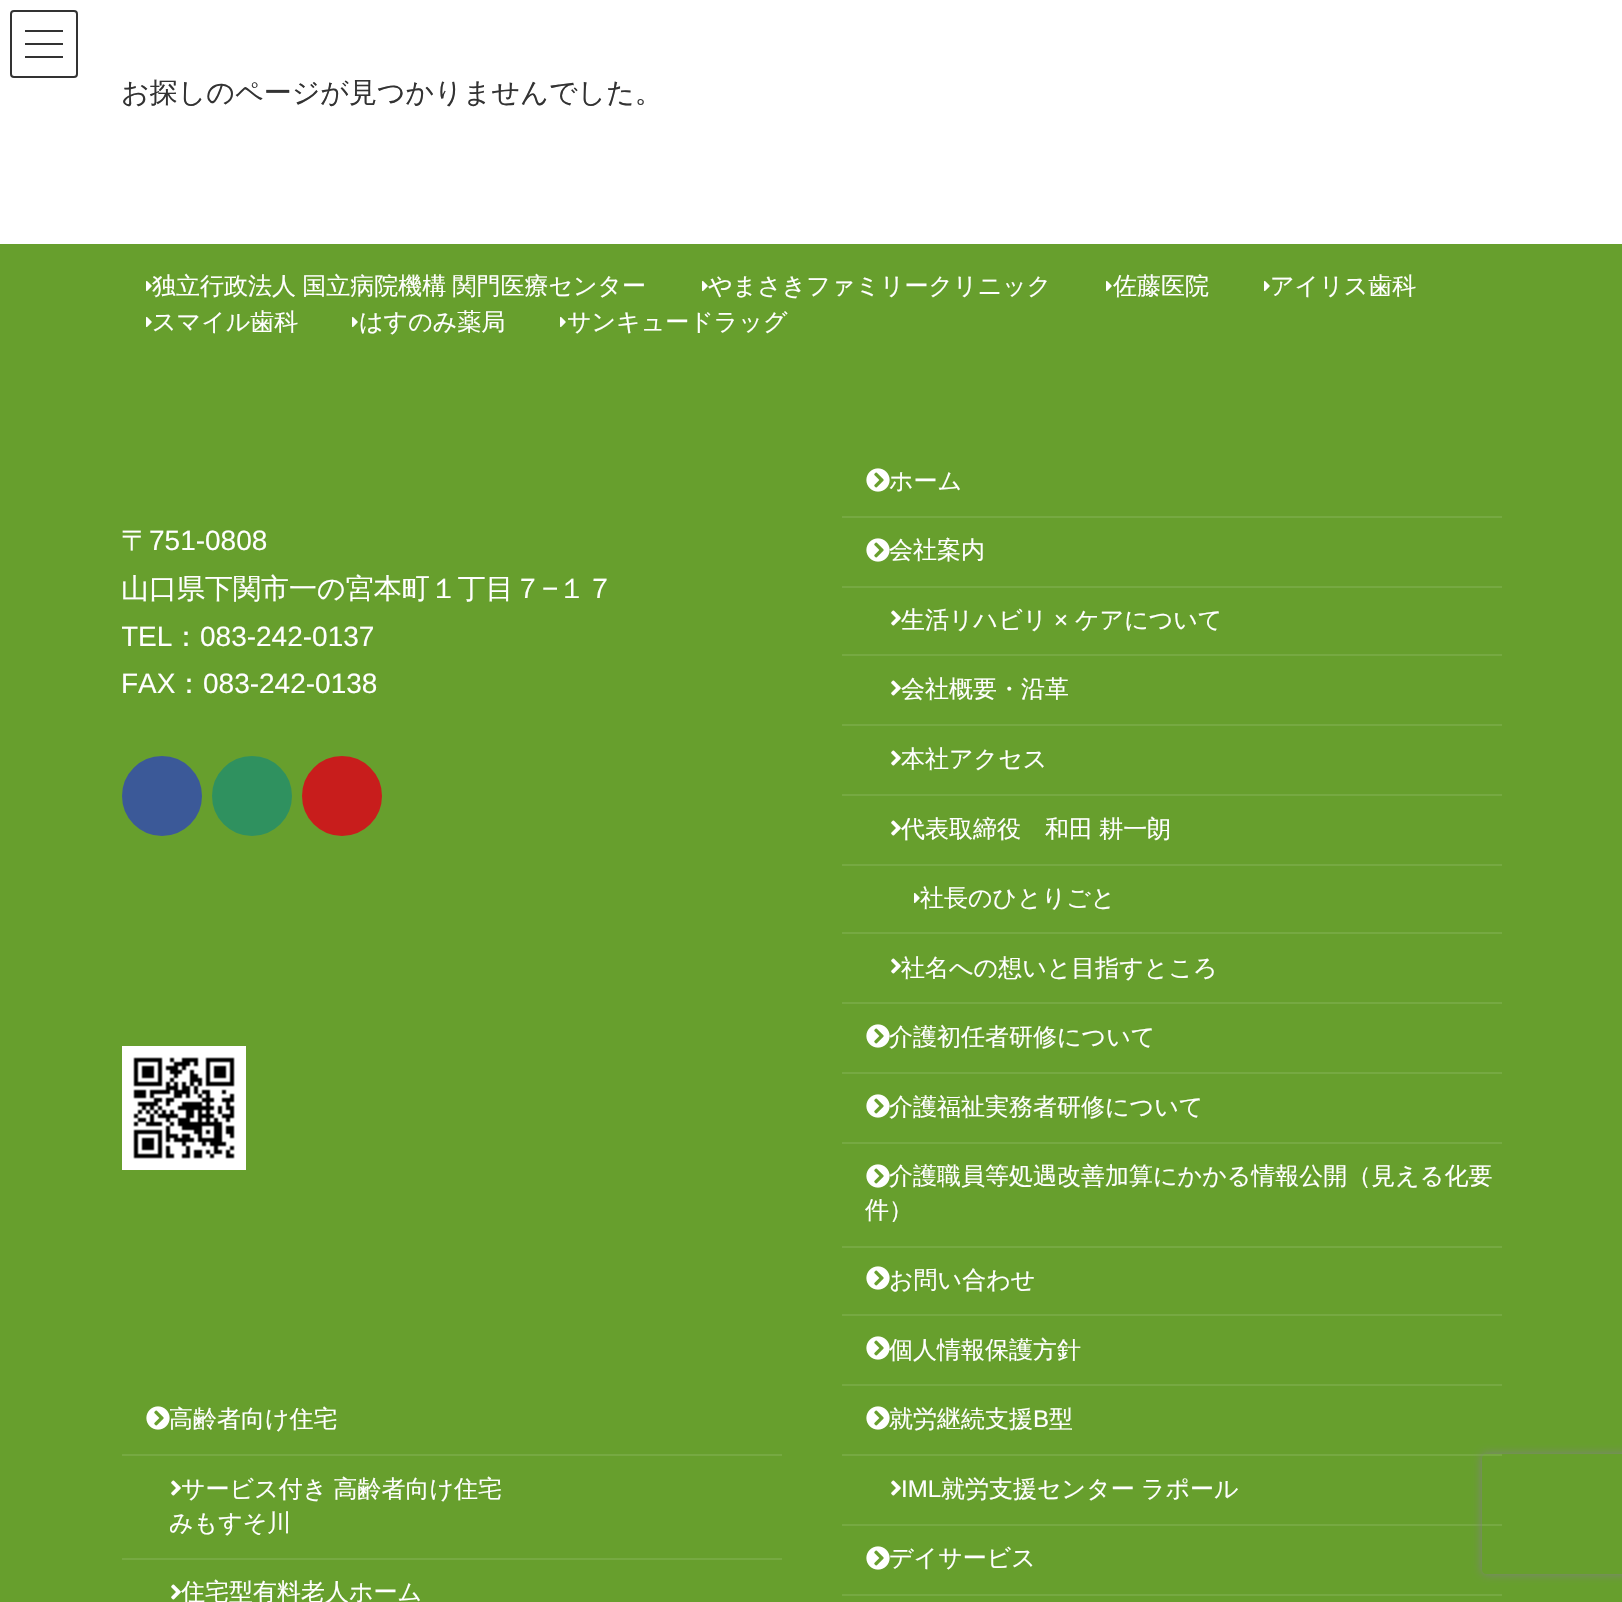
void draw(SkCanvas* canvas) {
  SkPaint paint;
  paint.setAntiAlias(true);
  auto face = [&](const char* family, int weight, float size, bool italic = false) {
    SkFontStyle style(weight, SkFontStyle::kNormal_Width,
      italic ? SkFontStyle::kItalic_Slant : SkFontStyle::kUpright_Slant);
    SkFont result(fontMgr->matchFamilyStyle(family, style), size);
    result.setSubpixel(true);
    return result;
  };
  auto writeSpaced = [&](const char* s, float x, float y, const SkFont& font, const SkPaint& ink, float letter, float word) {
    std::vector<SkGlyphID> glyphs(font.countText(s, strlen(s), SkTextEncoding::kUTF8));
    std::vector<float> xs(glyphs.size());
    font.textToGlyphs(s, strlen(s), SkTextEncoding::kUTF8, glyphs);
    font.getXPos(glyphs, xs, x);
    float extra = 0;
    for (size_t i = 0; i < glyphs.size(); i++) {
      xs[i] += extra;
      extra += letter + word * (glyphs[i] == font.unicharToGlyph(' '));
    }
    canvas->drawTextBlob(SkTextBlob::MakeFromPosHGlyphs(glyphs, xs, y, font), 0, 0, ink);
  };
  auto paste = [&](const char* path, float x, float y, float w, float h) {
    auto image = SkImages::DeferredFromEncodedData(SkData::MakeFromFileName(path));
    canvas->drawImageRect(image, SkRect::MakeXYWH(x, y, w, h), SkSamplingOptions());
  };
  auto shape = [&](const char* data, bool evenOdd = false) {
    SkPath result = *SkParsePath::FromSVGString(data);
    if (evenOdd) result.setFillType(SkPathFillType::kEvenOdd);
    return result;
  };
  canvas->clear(0xffffffff);
  {
    const struct { float x, y, w, h; SkColor color; } items[] = {
      {25, 30, 38, 2, 0xff333333},
      {25, 43, 38, 2, 0xff333333},
      {25, 56, 38, 2, 0xff333333},
    };
    for (auto [x, y, w, h, color] : items) {
      paint.setColor(color);
      canvas->drawRect(SkRect::MakeXYWH(x, y, w, h), paint);
    }
  }
  paint.setStroke(true);
  paint.setStrokeWidth(2);
  canvas->drawRoundRect(SkRect::MakeXYWH(11, 11, 66, 66), 3, 3, paint);
  paint.setStroke(false);
  paint.setColor(0xff679f2d);
  canvas->drawRect(SkRect::MakeXYWH(0, 244, 1622, 1358), paint);
  paste("img/2.png", 702, 280, 6, 12);
  paste("img/2.png", 1106, 280, 6, 12);
  paste("img/2.png", 1264, 280, 6, 12);
  paste("img/2.png", 146, 316, 6, 12);
  paste("img/2.png", 352, 316, 6, 12);
  paste("img/2.png", 560, 316, 6, 12);
  paint.setColor(0xff3b5998);
  canvas->drawCircle(162, 796, 39, paint);
  paint.setStroke(true);
  canvas->drawCircle(162, 796, 39, paint);
  paint.setStroke(false);
  paint.setColor(0xff2f915f);
  canvas->drawCircle(252, 796, 39, paint);
  paint.setStroke(true);
  canvas->drawCircle(252, 796, 39, paint);
  paint.setStroke(false);
  paint.setColor(0xffc81d1c);
  canvas->drawCircle(342, 796, 39, paint);
  paint.setStroke(true);
  canvas->drawCircle(342, 796, 39, paint);
  paste("img/3.png", 122, 1046, 124, 124);
  paint.setStroke(false);
  {
    const struct { float x, y, w, h; SkColor color; } items[] = {
      {842, 516, 660, 2, 0xff76a942},
      {842, 586, 660, 2, 0xff76a942},
      {842, 654, 660, 2, 0xff76a942},
    };
    for (auto [x, y, w, h, color] : items) {
      paint.setColor(color);
      canvas->drawRect(SkRect::MakeXYWH(x, y, w, h), paint);
    }
  }
  paste("img/6.png", 891, 610, 10, 16);
  canvas->drawRect(SkRect::MakeXYWH(842, 724, 660, 2), paint);
  paste("img/6.png", 891, 680, 10, 16);
  canvas->drawRect(SkRect::MakeXYWH(842, 794, 660, 2), paint);
  paste("img/6.png", 891, 750, 10, 16);
  canvas->drawRect(SkRect::MakeXYWH(842, 864, 660, 2), paint);
  paste("img/6.png", 891, 820, 10, 16);
  canvas->drawRect(SkRect::MakeXYWH(842, 932, 660, 2), paint);
  canvas->drawRect(SkRect::MakeXYWH(842, 1002, 660, 2), paint);
  paste("img/6.png", 891, 958, 10, 16);
  {
    const struct { float x, y, w, h; SkColor color; } items[] = {
      {842, 1072, 660, 2, 0xff76a942},
      {842, 1142, 660, 2, 0xff76a942},
      {842, 1246, 660, 2, 0xff76a942},
      {842, 1314, 660, 2, 0xff76a942},
    };
    for (auto [x, y, w, h, color] : items) {
      paint.setColor(color);
      canvas->drawRect(SkRect::MakeXYWH(x, y, w, h), paint);
    }
  }
  paste("img/10.png", 866, 1266, 24, 24);
  canvas->drawRect(SkRect::MakeXYWH(842, 1384, 660, 2), paint);
  canvas->drawRect(SkRect::MakeXYWH(122, 1454, 660, 2), paint);
  paste("img/10.png", 146, 1406, 24, 24);
  canvas->drawRect(SkRect::MakeXYWH(122, 1558, 660, 2), paint);
  paste("img/6.png", 171, 1480, 10, 16);
  paste("img/6.png", 171, 1584, 10, 16);
  canvas->drawRect(SkRect::MakeXYWH(842, 1454, 660, 2), paint);
  canvas->drawRect(SkRect::MakeXYWH(842, 1524, 660, 2), paint);
  paste("img/6.png", 891, 1480, 10, 16);
  canvas->drawRect(SkRect::MakeXYWH(842, 1594, 660, 2), paint);
  paste("img/10.png", 866, 1546, 24, 24);
  canvas->save();
  canvas->clipPath(shape("M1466 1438H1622V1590H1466ZM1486 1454H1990C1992 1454 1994 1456 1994 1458V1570C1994 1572 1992 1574 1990 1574H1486C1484 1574 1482 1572 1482 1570V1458C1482 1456 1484 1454 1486 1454Z", true), true);
  paint.setColor(0xff808080);
  paint.setMaskFilter(SkMaskFilter::MakeBlur(kNormal_SkBlurStyle, 5));
  canvas->drawRoundRect(SkRect::MakeXYWH(1482, 1454, 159, 120), 4, 4, paint);
  paint.setMaskFilter(nullptr);
  canvas->restore();
  auto f0 = face("WenQuanYi Zen Hei", 500, 28);
  paint.setColor(0xff333333);
  canvas->drawString("お探しのページが見つかりませんでした。", 121, 102, f0, paint);
  auto f1 = face("WenQuanYi Zen Hei", 500, 24);
  paint.setColor(0xffffffff);
  writeSpaced("独立行政法人 国立病院機構 関門医療センター", 152, 294, f1, paint, 0, -1);
  paste("img/1.png", 146, 280, 6, 12);
  {
    const struct { const char* s; float x, y; } items[] = {
      {"やまさきファミリークリニック", 708, 294},
      {"佐藤医院", 1113, 294},
      {"アイリス歯科", 1270, 294},
      {"スマイル歯科", 152, 330},
      {"はすのみ薬局", 359, 330},
      {"サンキュードラッグ", 567, 330},
    };
    for (auto [s, x, y] : items) {
      canvas->drawString(s, x, y, f1, paint);
    }
  }
  canvas->drawString("〒", 121, 550, f0, paint);
  auto f2 = face("Liberation Sans", 400, 28);
  canvas->drawString("751-0808", 149, 550, f2, paint);
  canvas->drawString("山口県下関市一の宮本町１丁目７", 121, 598, f0, paint);
  canvas->drawString("−", 542, 598, f2, paint);
  canvas->drawString("１７", 558, 598, f0, paint);
  canvas->save();
  canvas->clipRect(SkRect::MakeXYWH(122, 448, 660, 400));
  canvas->drawString("TEL", 121, 646, f2, paint);
  canvas->restore();
  canvas->drawString("：", 172, 646, f0, paint);
  canvas->drawString("083-242-0137", 200, 646, f2, paint);
  canvas->drawString("FAX", 121, 693, f2, paint);
  canvas->drawString("：", 175, 693, f0, paint);
  canvas->drawString("083-242-0138", 203, 693, f2, paint);
  canvas->drawString("ホーム", 889, 489, f1, paint);
  paste("img/4.png", 866, 468, 24, 24);
  canvas->drawString("会社案内", 889, 558, f1, paint);
  paste("img/5.png", 866, 538, 24, 24);
  canvas->drawString("生活リハビリ", 901, 628, f1, paint);
  auto f3 = face("Liberation Sans", 400, 24);
  canvas->drawString("×", 1054, 628, f3, paint);
  {
    const struct { const char* s; float x, y; } items[] = {
      {"ケアについて", 1075, 628},
      {"会社概要・沿革", 901, 697},
      {"本社アクセス", 901, 767},
    };
    for (auto [s, x, y] : items) {
      canvas->drawString(s, x, y, f1, paint);
    }
  }
  writeSpaced("代表取締役　和田 耕一朗", 901, 837, f1, paint, 0, -1);
  canvas->drawString("社長のひとりごと", 920, 906, f1, paint);
  paste("img/7.png", 914, 892, 6, 12);
  canvas->drawString("社名への想いと目指すところ", 901, 976, f1, paint);
  canvas->drawString("介護初任者研修について", 889, 1045, f1, paint);
  paste("img/8.png", 866, 1024, 24, 24);
  canvas->drawString("介護福祉実務者研修について", 889, 1115, f1, paint);
  paste("img/8.png", 866, 1094, 24, 24);
  canvas->drawString("介護職員等処遇改善加算にかかる情報公開（見える化要", 889, 1184, f1, paint);
  paste("img/9.png", 866, 1164, 24, 24);
  {
    const struct { const char* s; float x, y; } items[] = {
      {"件）", 865, 1218},
      {"お問い合わせ", 889, 1288},
      {"個人情報保護方針", 889, 1358},
    };
    for (auto [s, x, y] : items) {
      canvas->drawString(s, x, y, f1, paint);
    }
  }
  paste("img/11.png", 866, 1336, 24, 24);
  canvas->drawString("高齢者向け住宅", 169, 1427, f1, paint);
  writeSpaced("サービス付き 高齢者向け住宅", 181, 1497, f1, paint, 0, -1);
  {
    const struct { const char* s; float x, y; } items[] = {
      {"みもすそ川", 169, 1531},
      {"住宅型有料老人ホーム", 181, 1600},
      {"就労継続支援", 889, 1427},
    };
    for (auto [s, x, y] : items) {
      canvas->drawString(s, x, y, f1, paint);
    }
  }
  paste("img/12.png", 866, 1406, 24, 24);
  canvas->drawString("B", 1033, 1427, f3, paint);
  canvas->drawString("型", 1049, 1427, f1, paint);
  canvas->drawString("IML", 901, 1497, f3, paint);
  writeSpaced("就労支援センター ラポール", 941, 1497, f1, paint, 0, -1);
  canvas->drawString("デイサービス", 889, 1566, f1, paint);
}
